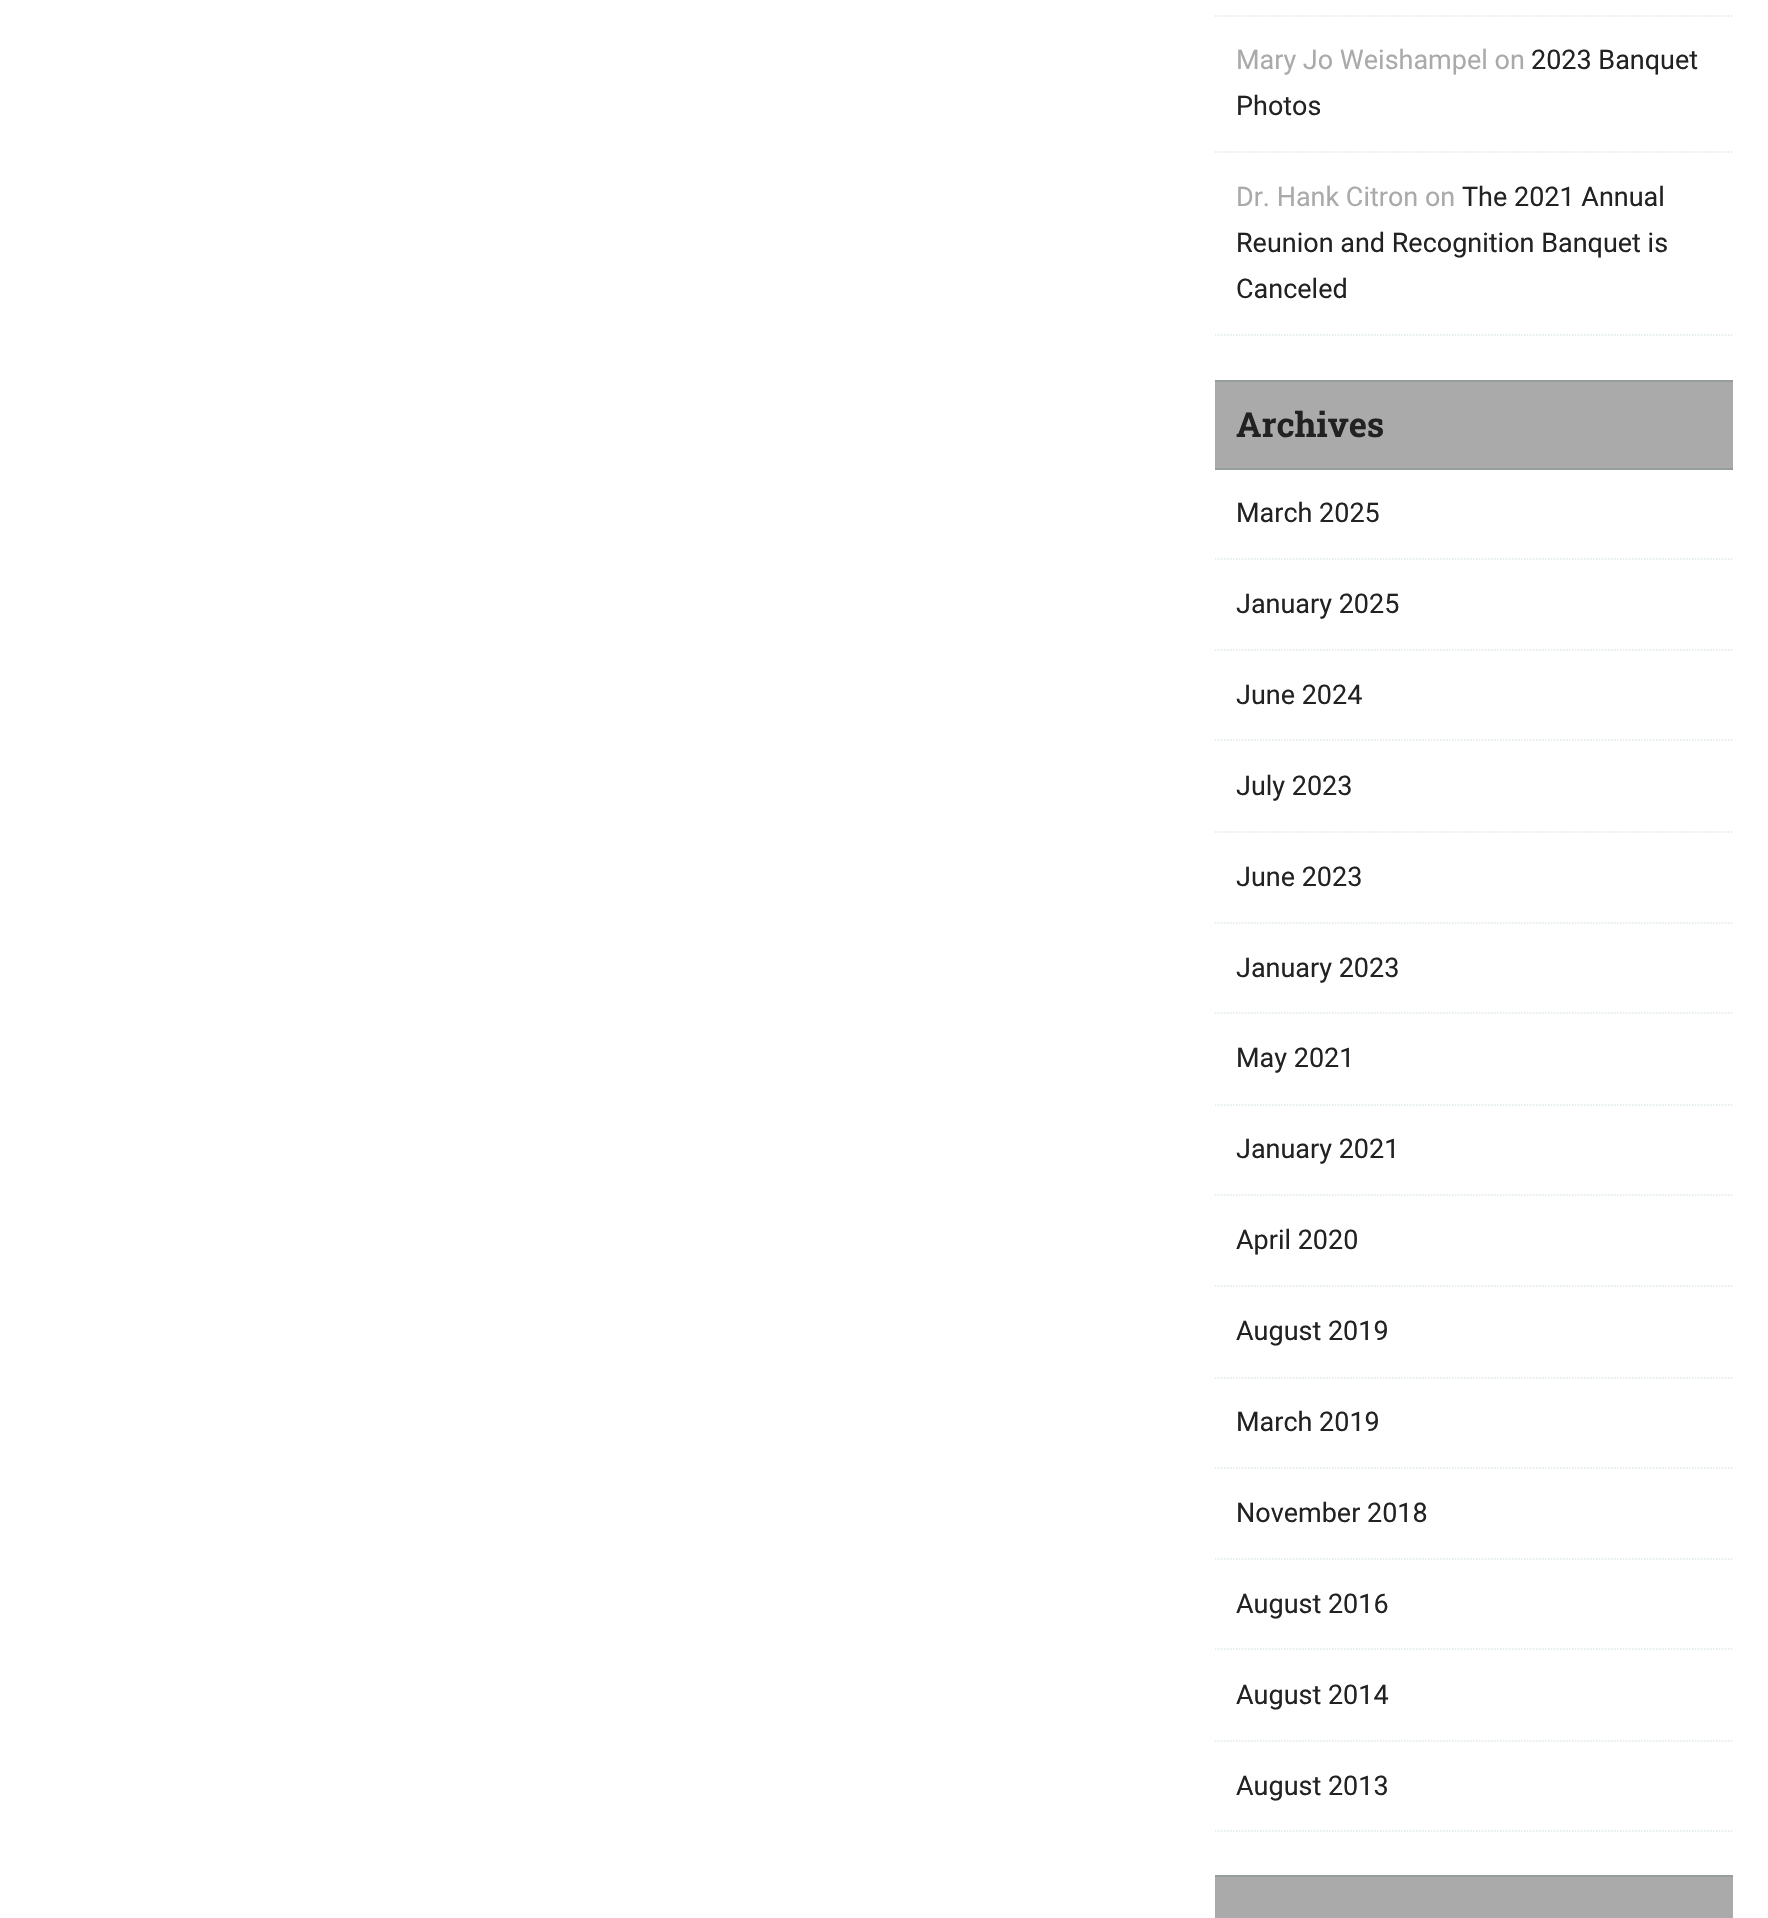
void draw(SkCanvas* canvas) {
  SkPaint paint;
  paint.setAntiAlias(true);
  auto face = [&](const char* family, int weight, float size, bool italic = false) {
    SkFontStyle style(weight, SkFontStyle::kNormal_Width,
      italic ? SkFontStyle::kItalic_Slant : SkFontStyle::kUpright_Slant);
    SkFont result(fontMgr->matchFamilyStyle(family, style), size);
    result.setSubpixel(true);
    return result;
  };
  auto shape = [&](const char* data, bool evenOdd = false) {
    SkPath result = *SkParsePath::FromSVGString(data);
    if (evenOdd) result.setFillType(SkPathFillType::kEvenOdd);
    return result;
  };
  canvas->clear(0xffffffff);
  paint.setStroke(true);
  paint.setStrokeWidth(1.5f);
  paint.setColor(0xffdee9e6);
  paint.setPathEffect(SkDashPathEffect::Make({{1.5f, 1.5f}}, 0));
  canvas->drawPath(shape("M1215 16H1732.5"), paint);
  paint.setPathEffect(nullptr);
  paint.setPathEffect(SkDashPathEffect::Make({{1.5f, 1.5f}}, 0));
  canvas->drawPath(shape("M1215 152H1732.5"), paint);
  paint.setPathEffect(nullptr);
  paint.setPathEffect(SkDashPathEffect::Make({{1.5f, 1.5f}}, 0));
  canvas->drawPath(shape("M1215 335H1732.5"), paint);
  paint.setPathEffect(nullptr);
  paint.setStroke(false);
  {
    const struct { float x, y, w, h; SkColor color; } items[] = {
      {1215, 382, 518, 86, 0xffaaaaaa},
      {1215, 380, 518, 2, 0xff949f9c},
      {1215, 468, 518, 2, 0xff949f9c},
    };
    for (auto [x, y, w, h, color] : items) {
      paint.setColor(color);
      canvas->drawRect(SkRect::MakeXYWH(x, y, w, h), paint);
    }
  }
  paint.setStroke(true);
  paint.setColor(0xffdee9e6);
  paint.setPathEffect(SkDashPathEffect::Make({{1.5f, 1.5f}}, 0));
  canvas->drawPath(shape("M1215 559H1732.5"), paint);
  paint.setPathEffect(nullptr);
  paint.setPathEffect(SkDashPathEffect::Make({{1.5f, 1.5f}}, 0));
  canvas->drawPath(shape("M1215 650H1732.5"), paint);
  paint.setPathEffect(nullptr);
  paint.setPathEffect(SkDashPathEffect::Make({{1.5f, 1.5f}}, 0));
  canvas->drawPath(shape("M1215 740H1732.5"), paint);
  paint.setPathEffect(nullptr);
  paint.setPathEffect(SkDashPathEffect::Make({{1.5f, 1.5f}}, 0));
  canvas->drawPath(shape("M1215 832H1732.5"), paint);
  paint.setPathEffect(nullptr);
  paint.setPathEffect(SkDashPathEffect::Make({{1.5f, 1.5f}}, 0));
  canvas->drawPath(shape("M1215 923H1732.5"), paint);
  paint.setPathEffect(nullptr);
  paint.setPathEffect(SkDashPathEffect::Make({{1.5f, 1.5f}}, 0));
  canvas->drawPath(shape("M1215 1013H1732.5"), paint);
  paint.setPathEffect(nullptr);
  paint.setPathEffect(SkDashPathEffect::Make({{1.5f, 1.5f}}, 0));
  canvas->drawPath(shape("M1215 1105H1732.5"), paint);
  paint.setPathEffect(nullptr);
  paint.setPathEffect(SkDashPathEffect::Make({{1.5f, 1.5f}}, 0));
  canvas->drawPath(shape("M1215 1195H1732.5"), paint);
  paint.setPathEffect(nullptr);
  paint.setPathEffect(SkDashPathEffect::Make({{1.5f, 1.5f}}, 0));
  canvas->drawPath(shape("M1215 1286H1732.5"), paint);
  paint.setPathEffect(nullptr);
  paint.setPathEffect(SkDashPathEffect::Make({{1.5f, 1.5f}}, 0));
  canvas->drawPath(shape("M1215 1378H1732.5"), paint);
  paint.setPathEffect(nullptr);
  paint.setPathEffect(SkDashPathEffect::Make({{1.5f, 1.5f}}, 0));
  canvas->drawPath(shape("M1215 1468H1732.5"), paint);
  paint.setPathEffect(nullptr);
  paint.setPathEffect(SkDashPathEffect::Make({{1.5f, 1.5f}}, 0));
  canvas->drawPath(shape("M1215 1559H1732.5"), paint);
  paint.setPathEffect(nullptr);
  paint.setPathEffect(SkDashPathEffect::Make({{1.5f, 1.5f}}, 0));
  canvas->drawPath(shape("M1215 1649H1732.5"), paint);
  paint.setPathEffect(nullptr);
  paint.setPathEffect(SkDashPathEffect::Make({{1.5f, 1.5f}}, 0));
  canvas->drawPath(shape("M1215 1741H1732.5"), paint);
  paint.setPathEffect(nullptr);
  paint.setPathEffect(SkDashPathEffect::Make({{1.5f, 1.5f}}, 0));
  canvas->drawPath(shape("M1215 1831H1732.5"), paint);
  paint.setPathEffect(nullptr);
  paint.setStroke(false);
  paint.setColor(0xffaaaaaa);
  canvas->drawRect(SkRect::MakeXYWH(1215, 1877, 518, 41), paint);
  paint.setColor(0xff949f9c);
  canvas->drawRect(SkRect::MakeXYWH(1215, 1875, 518, 2), paint);
  auto f0 = face("Roboto", 400, 27);
  paint.setColor(0xffaaaaaa);
  canvas->drawString("Mary Jo Weishampel on", 1236, 69, f0, paint);
  paint.setColor(0xff222222);
  canvas->drawString("2023 Banquet", 1531, 69, f0, paint);
  canvas->drawString("Photos", 1236, 115, f0, paint);
  paint.setColor(0xffaaaaaa);
  canvas->drawString("Dr. Hank Citron on", 1236, 206, f0, paint);
  paint.setColor(0xff222222);
  {
    const struct { const char* s; float x, y; } items[] = {
      {"The 2021 Annual", 1462, 206},
      {"Reunion and Recognition Banquet is", 1236, 252},
      {"Canceled", 1236, 298},
    };
    for (auto [s, x, y] : items) {
      canvas->drawString(s, x, y, f0, paint);
    }
  }
  auto f1 = face("Roboto Slab", 700, 34.5f);
  canvas->drawString("Archives", 1236, 437, f1, paint);
  {
    const struct { const char* s; float x, y; } items[] = {
      {"March 2025", 1236, 522},
      {"January 2025", 1236, 613},
      {"June 2024", 1236, 704},
      {"July 2023", 1236, 795},
      {"June 2023", 1236, 886},
      {"January 2023", 1236, 977},
      {"May 2021", 1236, 1067},
      {"January 2021", 1236, 1158},
      {"April 2020", 1236, 1249},
      {"August 2019", 1236, 1340},
      {"March 2019", 1236, 1431},
      {"November 2018", 1236, 1522},
      {"August 2016", 1236, 1613},
      {"August 2014", 1236, 1704},
      {"August 2013", 1236, 1795},
    };
    for (auto [s, x, y] : items) {
      canvas->drawString(s, x, y, f0, paint);
    }
  }
}
